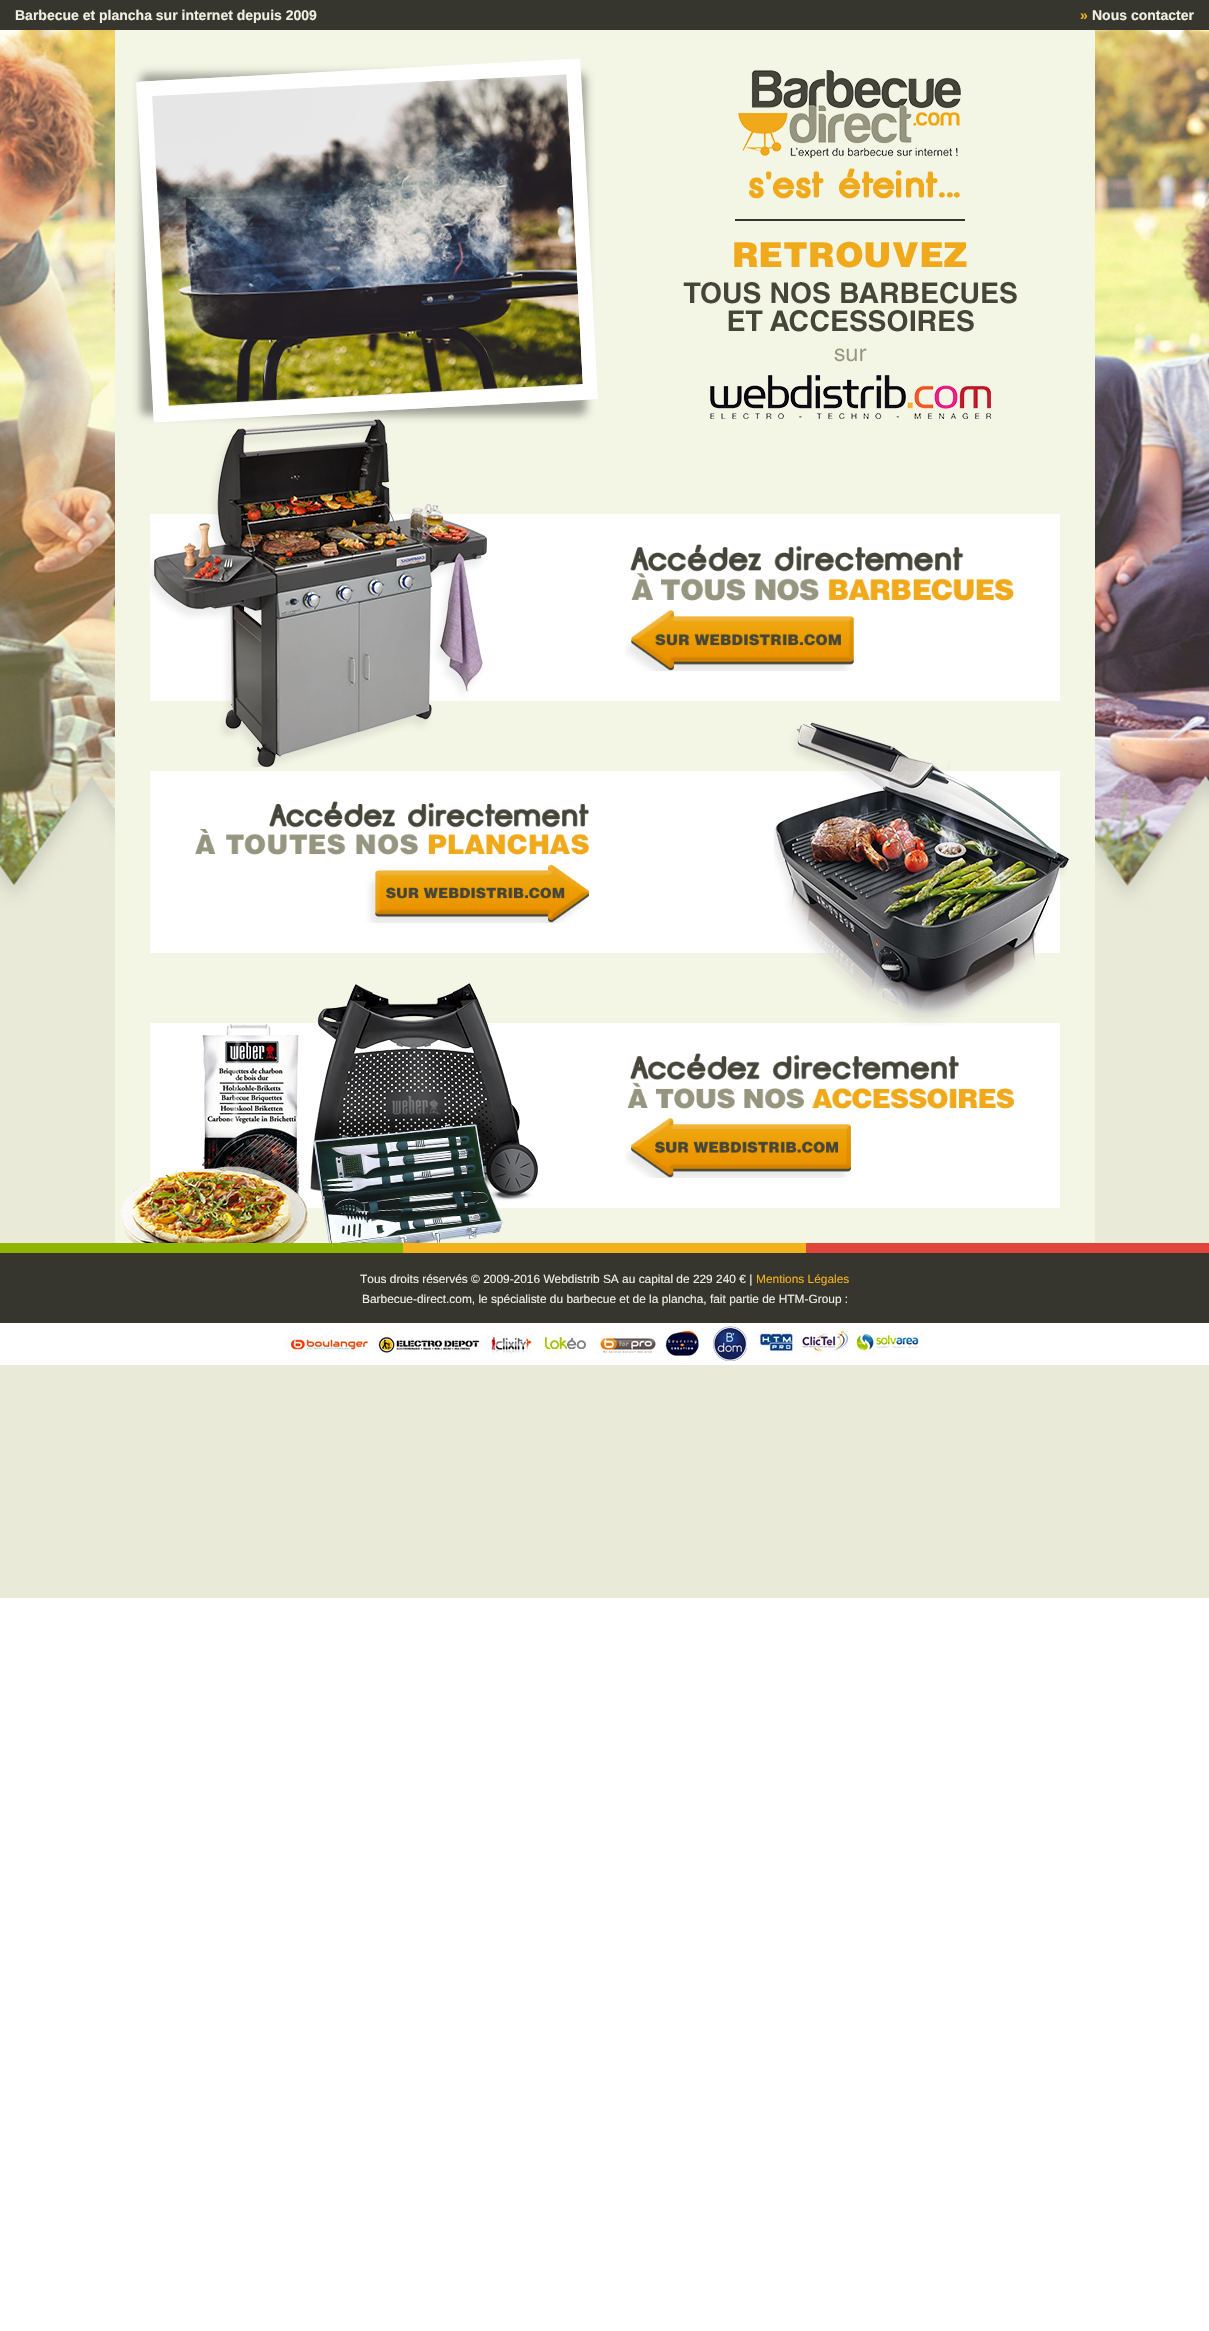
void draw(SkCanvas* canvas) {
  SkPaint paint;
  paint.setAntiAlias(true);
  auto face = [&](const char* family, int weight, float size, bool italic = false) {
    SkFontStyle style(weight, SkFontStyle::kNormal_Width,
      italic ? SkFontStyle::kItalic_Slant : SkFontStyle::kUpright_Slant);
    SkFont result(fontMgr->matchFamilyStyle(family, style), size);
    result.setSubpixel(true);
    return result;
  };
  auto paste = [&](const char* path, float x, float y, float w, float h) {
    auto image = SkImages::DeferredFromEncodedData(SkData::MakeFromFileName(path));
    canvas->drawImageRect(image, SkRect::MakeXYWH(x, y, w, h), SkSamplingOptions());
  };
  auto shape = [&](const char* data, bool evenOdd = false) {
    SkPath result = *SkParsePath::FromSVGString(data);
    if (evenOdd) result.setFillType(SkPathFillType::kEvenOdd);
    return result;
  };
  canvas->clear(0xffffffff);
  paste("img/1.png", 0, 30, 1209, 1568);
  paint.setColor(0xff36362e);
  canvas->drawRect(SkRect::MakeXYWH(0, 0, 1209, 30), paint);
  paint.setColor(0xfff3f5e5);
  canvas->drawRect(SkRect::MakeXYWH(115, 30, 980, 1213), paint);
  canvas->save();
  canvas->clipPath(shape("M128 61H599V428H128ZM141 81.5L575.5 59C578 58.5 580.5 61 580.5 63.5L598 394C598 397 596 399 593 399.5L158.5 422C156 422.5 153.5 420 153.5 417.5L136 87C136 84 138 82 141 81.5Z", true), true);
  paint.setColor(0x59000000);
  paint.setMaskFilter(SkMaskFilter::MakeBlur(kNormal_SkBlurStyle, 4));
  canvas->drawRoundRect(SkRect::MakeXYWH(141, 74, 445, 341), 5, 5, paint);
  paint.setMaskFilter(nullptr);
  canvas->restore();
  paint.setStroke(true);
  paint.setStrokeWidth(15);
  paint.setColor(0xffffffff);
  canvas->drawPath(shape("M144 89L573 66.5L590 392L161 414.5Z"), paint);
  paste("img/2.png", 152, 74, 431, 332);
  paste("img/3.png", 738, 70, 223, 129);
  paint.setStroke(false);
  paint.setColor(0xff36362e);
  canvas->drawRect(SkRect::MakeXYWH(735, 219, 230, 2), paint);
  paste("img/4.png", 683, 241, 334, 178);
  paint.setColor(0xffffffff);
  canvas->drawRect(SkRect::MakeXYWH(150, 514, 910, 187), paint);
  paste("img/5.png", 150, 419, 337, 348);
  paste("img/6.png", 625, 544, 389, 127);
  canvas->drawRect(SkRect::MakeXYWH(150, 771, 910, 182), paint);
  paste("img/7.png", 195, 801, 394, 122);
  canvas->drawRect(SkRect::MakeXYWH(150, 1023, 910, 185), paint);
  paste("img/8.png", 774, 722, 295, 304);
  paste("img/9.png", 120, 983, 418, 260);
  paste("img/10.png", 625, 1053, 389, 125);
  {
    const struct { float x, y, w, h; SkColor color; } items[] = {
      {0, 1243, 403, 10, 0xff8fb500},
      {403, 1243, 403, 10, 0xfff2b21c},
      {806, 1243, 403, 10, 0xffe1443b},
      {0, 1253, 1209, 70, 0xff36362e},
      {0, 1323, 1209, 42, 0xffffffff},
    };
    for (auto [x, y, w, h, color] : items) {
      paint.setColor(color);
      canvas->drawRect(SkRect::MakeXYWH(x, y, w, h), paint);
    }
  }
  paste("img/11.png", 284, 1323, 640, 39);
  auto f0 = face("Liberation Sans", 700, 14);
  paint.setColor(0xffeff0e2);
  canvas->drawString("Barbecue et plancha sur internet depuis 2009", 15, 20, f0, paint);
  paint.setColor(0xfff2b21c);
  canvas->drawString("»", 1080, 20, f0, paint);
  paint.setColor(0xffeff0e2);
  canvas->drawString("Nous contacter", 1092, 20, f0, paint);
  auto f1 = face("Liberation Sans", 400, 11.9f);
  canvas->drawString("Tous droits réservés © 2009-2016 Webdistrib SA au capital de 229 240 € |", 360, 1283, f1, paint);
  paint.setColor(0xfff2b21c);
  canvas->drawString("Mentions Légales", 756, 1283, f1, paint);
  paint.setColor(0xffeff0e2);
  canvas->drawString("Barbecue-direct.com, le spécialiste du barbecue et de la plancha, fait partie de HTM-Group :", 362, 1303, f1, paint);
}
